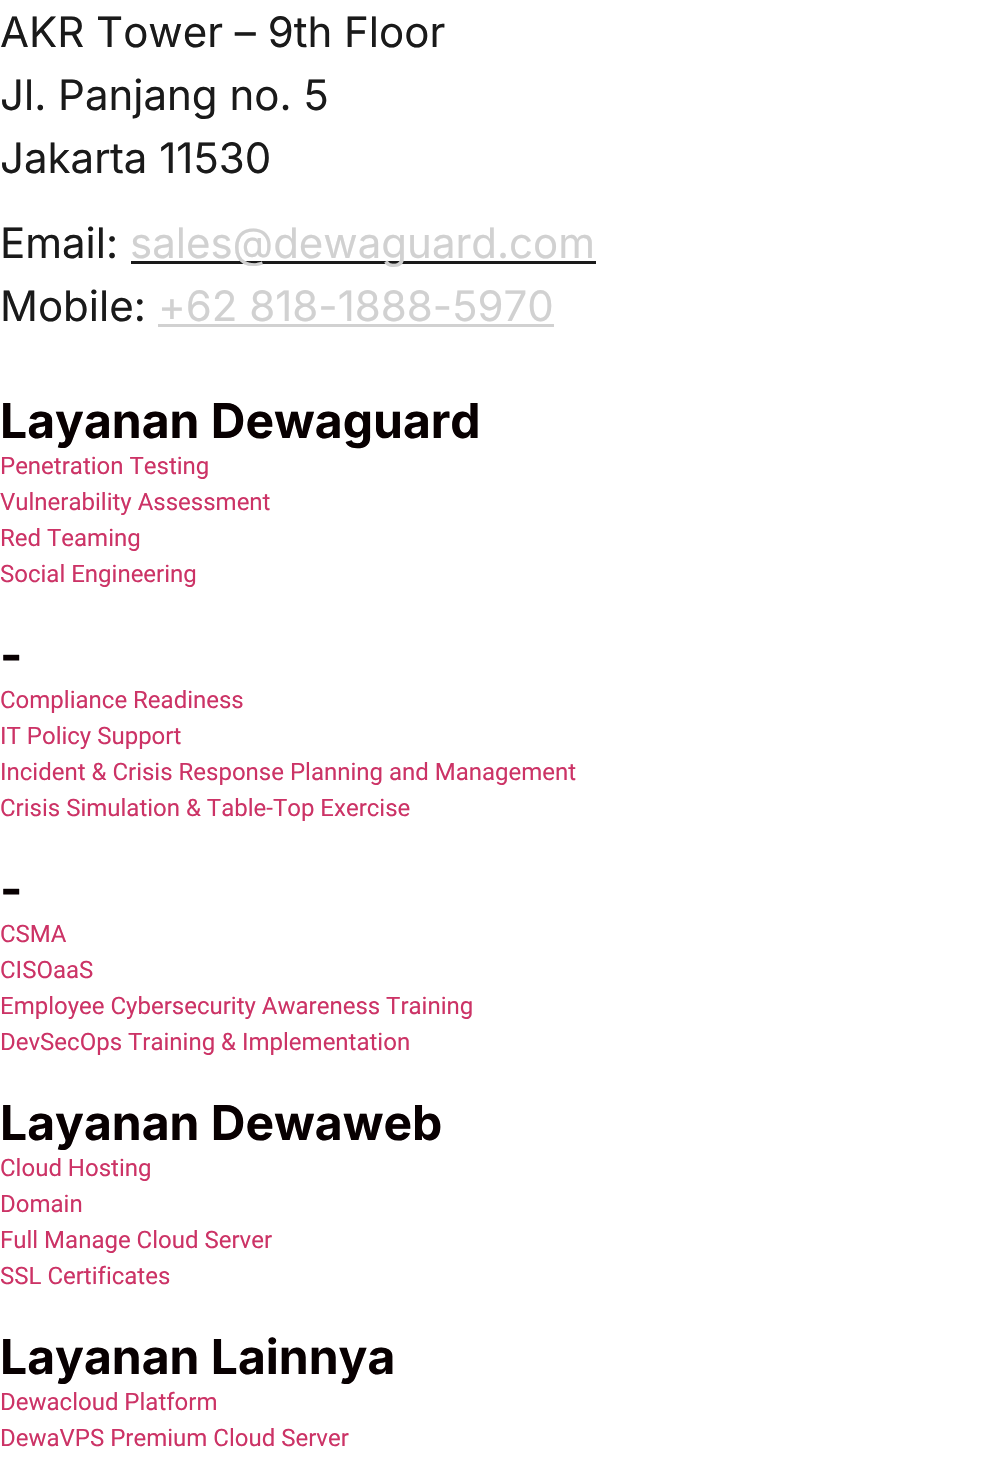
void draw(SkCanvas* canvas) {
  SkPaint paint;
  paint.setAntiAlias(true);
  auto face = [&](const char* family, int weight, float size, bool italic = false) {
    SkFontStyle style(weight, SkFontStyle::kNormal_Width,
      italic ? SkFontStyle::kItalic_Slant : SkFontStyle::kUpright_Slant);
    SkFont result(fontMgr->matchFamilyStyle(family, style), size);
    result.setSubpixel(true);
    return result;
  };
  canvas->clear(0xffffffff);
  paint.setColor(0xff1a1a1a);
  canvas->drawRect(SkRect::MakeXYWH(131, 261, 465, 3), paint);
  paint.setColor(0xffd1d1d1);
  canvas->drawRect(SkRect::MakeXYWH(158, 324, 396, 3), paint);
  auto f0 = face("Inter", 400, 42);
  paint.setColor(0xff1a1a1a);
  {
    const struct { const char* s; float x, y; } items[] = {
      {"AKR Tower – 9th Floor", 0, 47},
      {"Jl. Panjang no. 5", 0, 110},
      {"Jakarta 11530", 0, 173},
      {"Email:", 0, 258},
    };
    for (auto [s, x, y] : items) {
      canvas->drawString(s, x, y, f0, paint);
    }
  }
  paint.setColor(0xffd1d1d1);
  canvas->drawString("sales@dewaguard.com", 130, 258, f0, paint);
  paint.setColor(0xff1a1a1a);
  canvas->drawString("Mobile:", 0, 321, f0, paint);
  paint.setColor(0xffd1d1d1);
  canvas->drawString("+62 818-1888-5970", 158, 321, f0, paint);
  auto f1 = face("Inter", 700, 48);
  paint.setColor(0xff080001);
  canvas->drawString("Layanan Dewaguard", 0, 438, f1, paint);
  auto f2 = face("Roboto", 400, 24);
  paint.setColor(0xffcc3366);
  {
    const struct { const char* s; float x, y; } items[] = {
      {"Penetration Testing", 0, 474},
      {"Vulnerability Assessment", 0, 510},
      {"Red Teaming", 0, 546},
      {"Social Engineering", 0, 582},
    };
    for (auto [s, x, y] : items) {
      canvas->drawString(s, x, y, f2, paint);
    }
  }
  paint.setColor(0xff080001);
  canvas->drawString("-", 0, 672, f1, paint);
  paint.setColor(0xffcc3366);
  {
    const struct { const char* s; float x, y; } items[] = {
      {"Compliance Readiness", 0, 708},
      {"IT Policy Support", 0, 744},
      {"Incident & Crisis Response Planning and Management", 0, 780},
      {"Crisis Simulation & Table-Top Exercise", 0, 816},
    };
    for (auto [s, x, y] : items) {
      canvas->drawString(s, x, y, f2, paint);
    }
  }
  paint.setColor(0xff080001);
  canvas->drawString("-", 0, 906, f1, paint);
  paint.setColor(0xffcc3366);
  {
    const struct { const char* s; float x, y; } items[] = {
      {"CSMA", 0, 942},
      {"CISOaaS", 0, 978},
      {"Employee Cybersecurity Awareness Training", 0, 1014},
      {"DevSecOps Training & Implementation", 0, 1050},
    };
    for (auto [s, x, y] : items) {
      canvas->drawString(s, x, y, f2, paint);
    }
  }
  paint.setColor(0xff080001);
  canvas->drawString("Layanan Dewaweb", 0, 1140, f1, paint);
  paint.setColor(0xffcc3366);
  {
    const struct { const char* s; float x, y; } items[] = {
      {"Cloud Hosting", 0, 1176},
      {"Domain", 0, 1212},
      {"Full Manage Cloud Server", 0, 1248},
      {"SSL Certificates", 0, 1284},
    };
    for (auto [s, x, y] : items) {
      canvas->drawString(s, x, y, f2, paint);
    }
  }
  paint.setColor(0xff080001);
  canvas->drawString("Layanan Lainnya", 0, 1374, f1, paint);
  paint.setColor(0xffcc3366);
  canvas->drawString("Dewacloud Platform", 0, 1410, f2, paint);
  canvas->drawString("DewaVPS Premium Cloud Server", 0, 1446, f2, paint);
}
